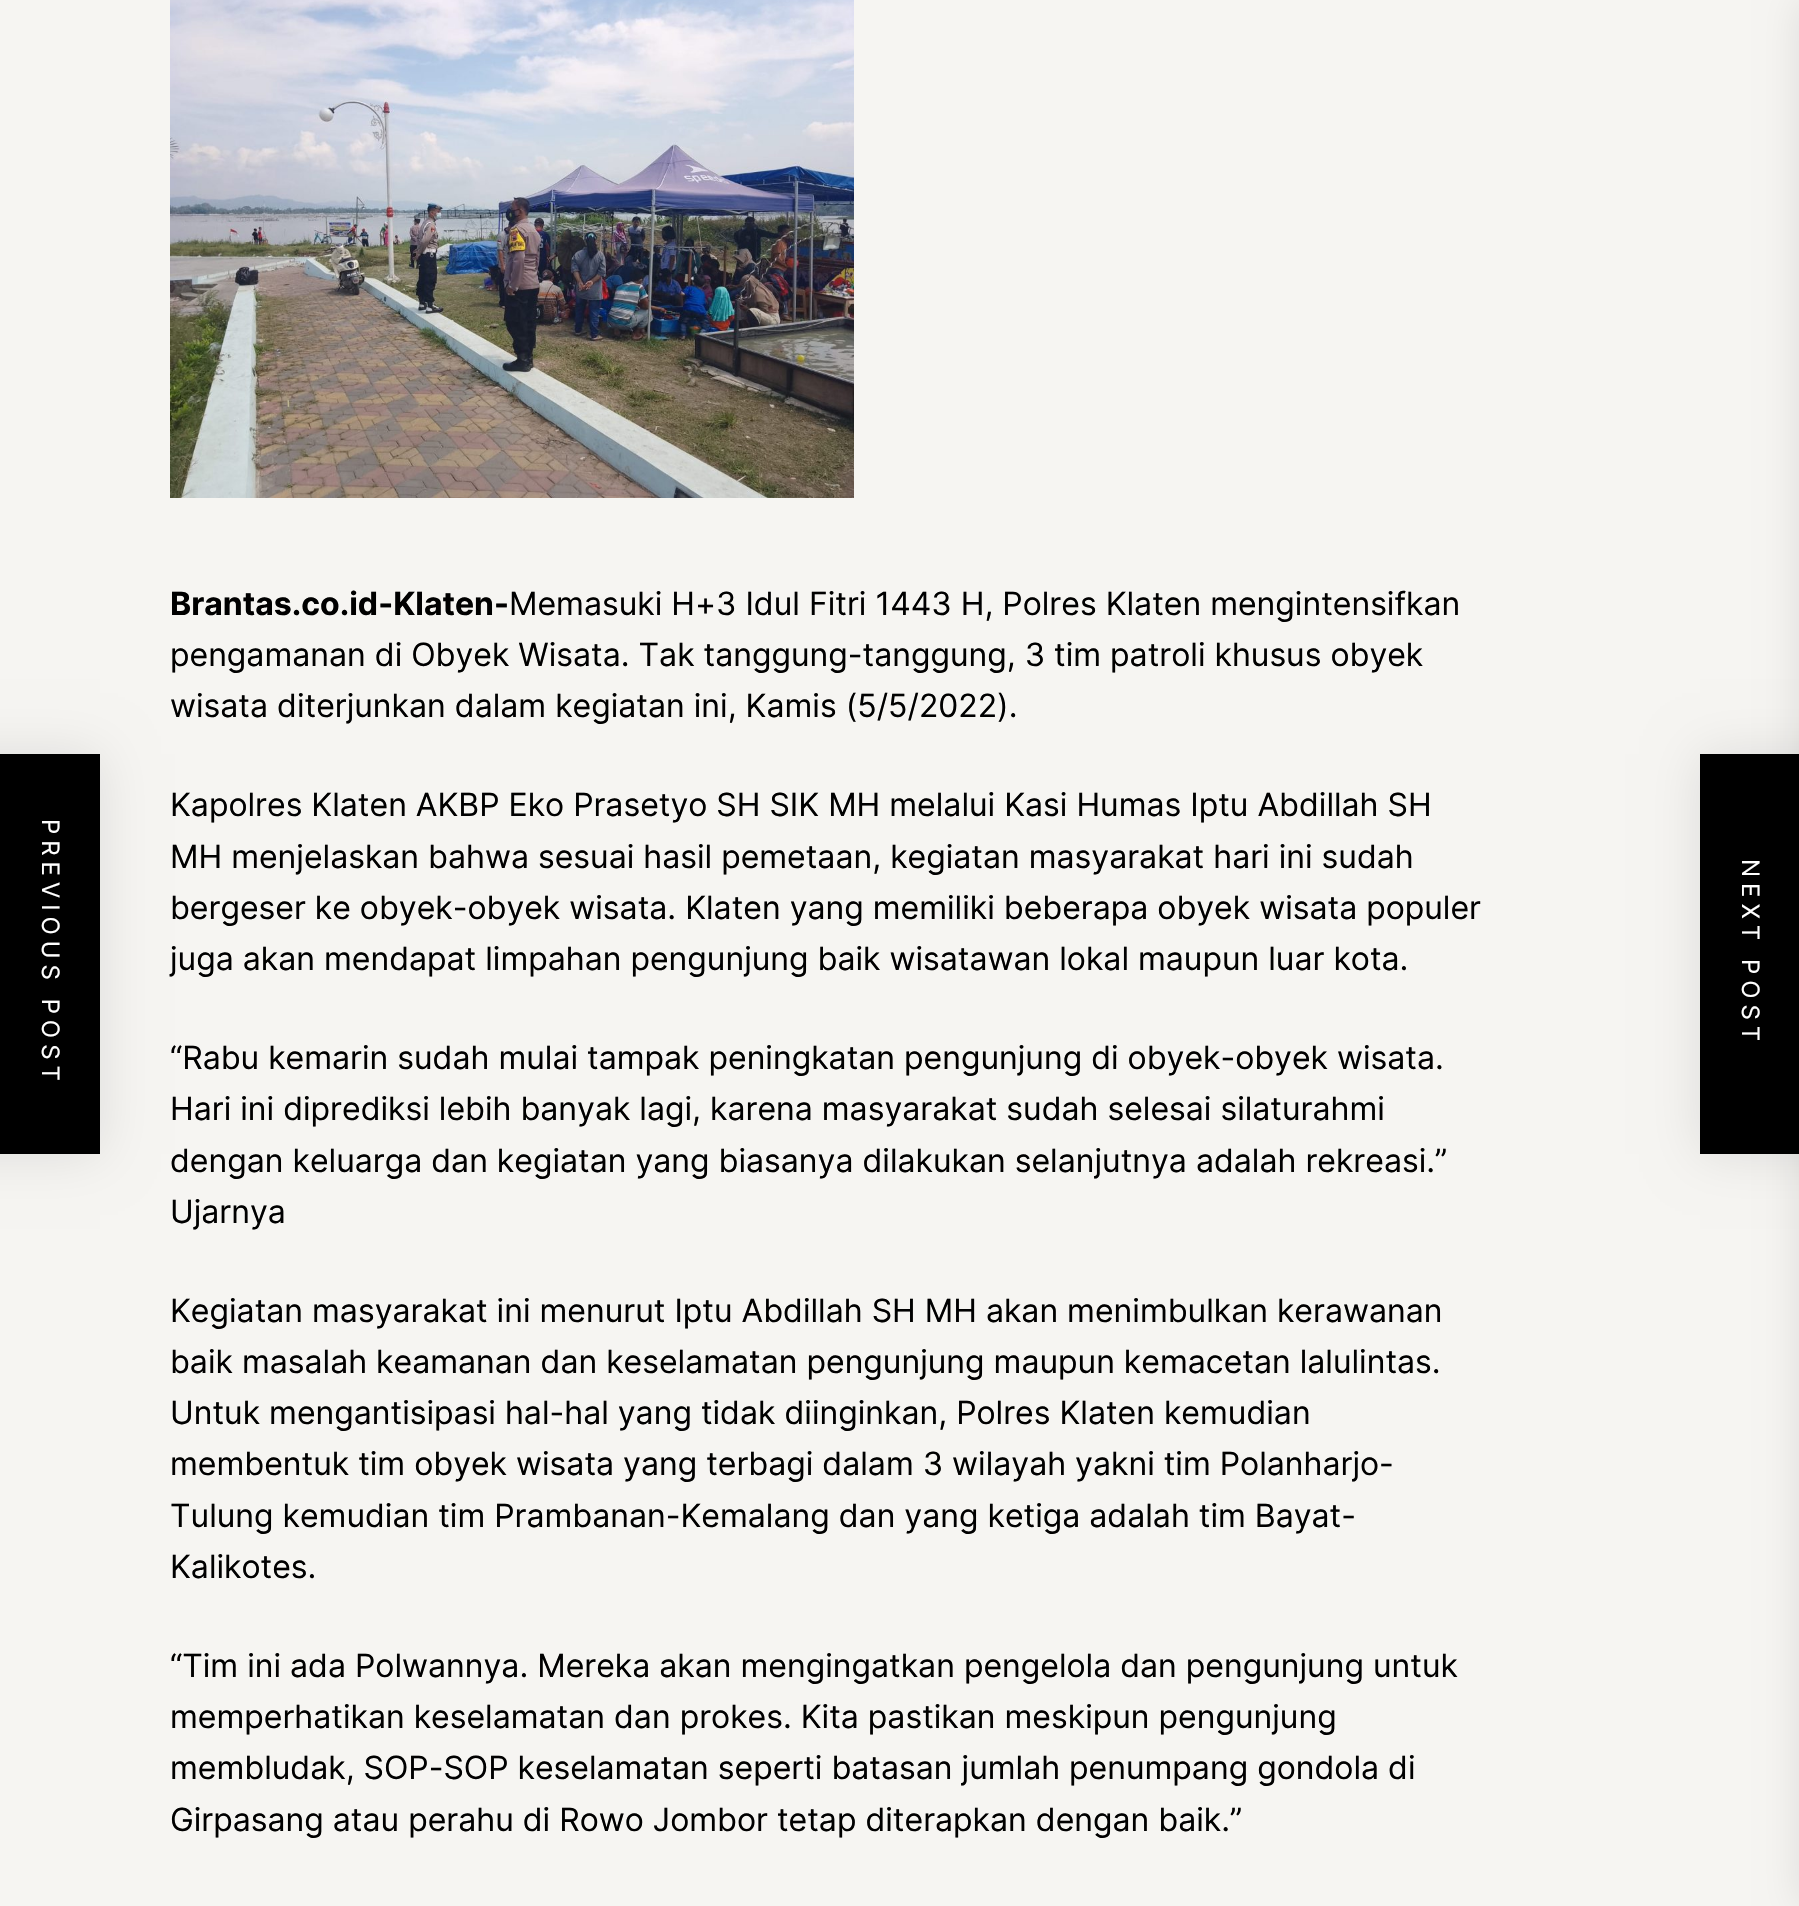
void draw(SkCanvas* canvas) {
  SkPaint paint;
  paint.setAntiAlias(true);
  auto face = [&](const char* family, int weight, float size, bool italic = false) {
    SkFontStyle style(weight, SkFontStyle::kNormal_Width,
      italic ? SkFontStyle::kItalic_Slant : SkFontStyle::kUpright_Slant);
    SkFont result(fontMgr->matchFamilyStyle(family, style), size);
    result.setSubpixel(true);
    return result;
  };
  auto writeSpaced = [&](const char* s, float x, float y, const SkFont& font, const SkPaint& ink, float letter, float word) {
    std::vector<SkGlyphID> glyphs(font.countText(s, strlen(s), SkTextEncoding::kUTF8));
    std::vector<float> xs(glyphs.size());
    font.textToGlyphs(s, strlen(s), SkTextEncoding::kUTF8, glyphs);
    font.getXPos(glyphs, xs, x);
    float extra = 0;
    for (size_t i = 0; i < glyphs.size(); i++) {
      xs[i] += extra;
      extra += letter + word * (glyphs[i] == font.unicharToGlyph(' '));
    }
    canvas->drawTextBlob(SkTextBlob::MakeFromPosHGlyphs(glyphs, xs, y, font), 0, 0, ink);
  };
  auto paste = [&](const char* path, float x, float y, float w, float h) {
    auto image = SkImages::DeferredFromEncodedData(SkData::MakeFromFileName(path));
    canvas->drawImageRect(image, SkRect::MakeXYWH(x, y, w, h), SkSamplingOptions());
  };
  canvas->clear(0xfff6f5f2);
  paint.setColor(0x1a000000);
  paint.setMaskFilter(SkMaskFilter::MakeBlur(kNormal_SkBlurStyle, 25));
  canvas->drawRect(SkRect::MakeXYWH(-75, 754, 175, 400), paint);
  paint.setMaskFilter(nullptr);
  paint.setColor(0xff000000);
  canvas->drawRect(SkRect::MakeXYWH(0, 754, 100, 400), paint);
  paste("img/1.png", 170, 0, 684, 498);
  paint.setColor(0x1a000000);
  paint.setMaskFilter(SkMaskFilter::MakeBlur(kNormal_SkBlurStyle, 25));
  canvas->drawRect(SkRect::MakeXYWH(1700, 754, 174, 400), paint);
  paint.setMaskFilter(nullptr);
  paint.setColor(0xff000000);
  canvas->drawRect(SkRect::MakeXYWH(1700, 754, 99, 400), paint);
  paint.setColor(0x1a000000);
  paint.setMaskFilter(SkMaskFilter::MakeBlur(kNormal_SkBlurStyle, 20));
  canvas->drawRect(SkRect::MakeXYWH(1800, 0, 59, 1906), paint);
  paint.setMaskFilter(nullptr);
  auto f0 = face("Inter", 400, 24);
  paint.setColor(0xffffffff);
  canvas->save();
  canvas->rotate(90, 42, 819);
  writeSpaced("PREVIOUS POST", 42, 819, f0, paint, 6, 0);
  canvas->restore();
  auto f1 = face("Inter", 700, 32);
  paint.setColor(0xff000000);
  canvas->drawString("Brantas.co.id-Klaten-", 170, 615, f1, paint);
  auto f2 = face("Inter", 400, 32);
  {
    const struct { const char* s; float x, y; } items[] = {
      {"Memasuki H+3 Idul Fitri 1443 H, Polres Klaten mengintensifkan", 509, 615},
      {"pengamanan di Obyek Wisata. Tak tanggung-tanggung, 3 tim patroli khusus obyek", 170, 666},
      {"wisata diterjunkan dalam kegiatan ini, Kamis (5/5/2022).", 170, 717},
      {"Kapolres Klaten AKBP Eko Prasetyo SH SIK MH melalui Kasi Humas Iptu Abdillah SH", 170, 816},
      {"MH menjelaskan bahwa sesuai hasil pemetaan, kegiatan masyarakat hari ini sudah", 170, 868},
      {"bergeser ke obyek-obyek wisata. Klaten yang memiliki beberapa obyek wisata populer", 170, 919},
      {"juga akan mendapat limpahan pengunjung baik wisatawan lokal maupun luar kota.", 170, 970},
      {"“Rabu kemarin sudah mulai tampak peningkatan pengunjung di obyek-obyek wisata.", 170, 1069},
      {"Hari ini diprediksi lebih banyak lagi, karena masyarakat sudah selesai silaturahmi", 170, 1120},
      {"dengan keluarga dan kegiatan yang biasanya dilakukan selanjutnya adalah rekreasi.”", 170, 1172},
      {"Ujarnya", 170, 1223},
      {"Kegiatan masyarakat ini menurut Iptu Abdillah SH MH akan menimbulkan kerawanan", 170, 1322},
      {"baik masalah keamanan dan keselamatan pengunjung maupun kemacetan lalulintas.", 170, 1373},
      {"Untuk mengantisipasi hal-hal yang tidak diinginkan, Polres Klaten kemudian", 170, 1424},
      {"membentuk tim obyek wisata yang terbagi dalam 3 wilayah yakni tim Polanharjo-", 170, 1475},
      {"Tulung kemudian tim Prambanan-Kemalang dan yang ketiga adalah tim Bayat-", 170, 1527},
      {"Kalikotes.", 170, 1578},
      {"“Tim ini ada Polwannya. Mereka akan mengingatkan pengelola dan pengunjung untuk", 170, 1677},
      {"memperhatikan keselamatan dan prokes. Kita pastikan meskipun pengunjung", 170, 1728},
      {"membludak, SOP-SOP keselamatan seperti batasan jumlah penumpang gondola di", 170, 1779},
      {"Girpasang atau perahu di Rowo Jombor tetap diterapkan dengan baik.”", 170, 1831},
    };
    for (auto [s, x, y] : items) {
      canvas->drawString(s, x, y, f2, paint);
    }
  }
  paint.setColor(0xffffffff);
  canvas->save();
  canvas->rotate(90, 1742, 859);
  writeSpaced("NEXT POST", 1742, 859, f0, paint, 6, 0);
  canvas->restore();
}
